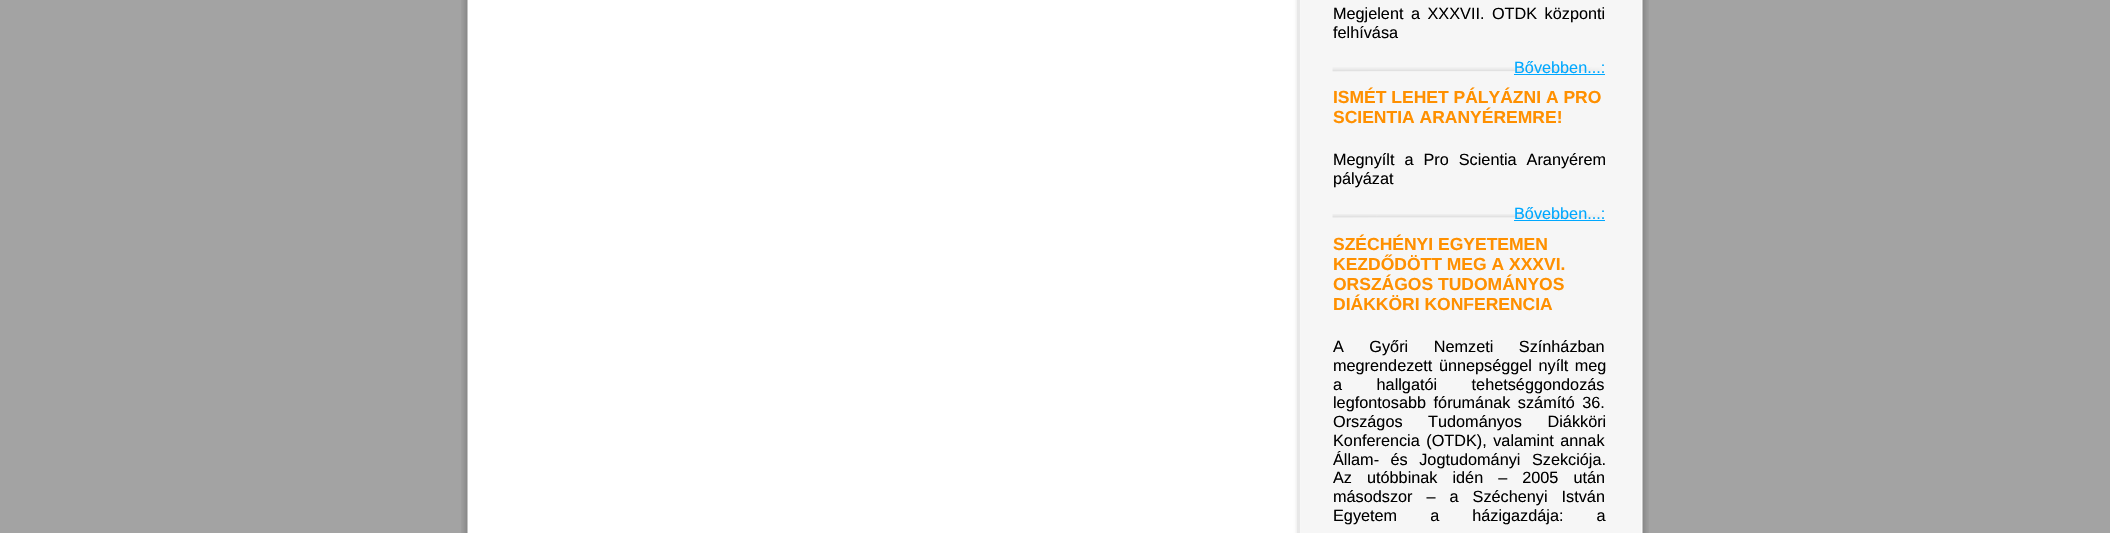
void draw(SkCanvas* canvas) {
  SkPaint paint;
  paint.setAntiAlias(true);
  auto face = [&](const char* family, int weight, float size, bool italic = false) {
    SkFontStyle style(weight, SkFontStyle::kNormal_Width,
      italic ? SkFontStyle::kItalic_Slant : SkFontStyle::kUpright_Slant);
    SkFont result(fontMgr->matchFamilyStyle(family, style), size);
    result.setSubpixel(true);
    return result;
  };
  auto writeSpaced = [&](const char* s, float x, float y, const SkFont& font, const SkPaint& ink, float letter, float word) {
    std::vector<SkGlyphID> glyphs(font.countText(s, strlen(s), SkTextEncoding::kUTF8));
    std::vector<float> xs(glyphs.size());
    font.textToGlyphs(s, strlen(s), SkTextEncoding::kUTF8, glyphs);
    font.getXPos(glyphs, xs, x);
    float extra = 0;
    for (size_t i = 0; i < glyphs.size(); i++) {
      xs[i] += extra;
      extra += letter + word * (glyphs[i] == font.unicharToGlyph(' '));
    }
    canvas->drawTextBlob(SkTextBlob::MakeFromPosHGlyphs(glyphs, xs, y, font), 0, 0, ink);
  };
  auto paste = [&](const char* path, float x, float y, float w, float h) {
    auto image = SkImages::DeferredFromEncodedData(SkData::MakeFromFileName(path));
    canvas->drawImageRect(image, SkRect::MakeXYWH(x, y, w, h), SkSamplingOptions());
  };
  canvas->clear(0xffa3a3a3);
  paste("img/1.png", 461, 0, 1188, 533);
  {
    const struct { float x, y, w, h; SkColor color; } items[] = {
      {1297, 0, 3, 533, 0xfff6f6f6},
      {1297, 0, 3, 533, 0xffe8e8e8},
      {1514, 74, 91, 1, 0xff00a8ff},
    };
    for (auto [x, y, w, h, color] : items) {
      paint.setColor(color);
      canvas->drawRect(SkRect::MakeXYWH(x, y, w, h), paint);
    }
  }
  paste("img/2.png", 1332, 67, 270, 5);
  canvas->drawRect(SkRect::MakeXYWH(1514, 220, 91, 1), paint);
  paste("img/3.png", 1332, 214, 270, 4);
  auto f0 = face("Liberation Sans", 400, 16.25f);
  paint.setColor(0xff000000);
  writeSpaced("Megjelent a XXXVII. OTDK központi", 1333, 19, f0, paint, 0, 3);
  canvas->drawString("felhívása", 1333, 38, f0, paint);
  paint.setColor(0xff00a8ff);
  canvas->drawString("Bővebben...:", 1514, 73, f0, paint);
  auto f1 = face("Liberation Sans", 700, 17.5f);
  paint.setColor(0xffff9000);
  canvas->drawString("ISMÉT LEHET PÁLYÁZNI A PRO", 1333, 103, f1, paint);
  canvas->drawString("SCIENTIA ARANYÉREMRE!", 1333, 123, f1, paint);
  paint.setColor(0xff000000);
  writeSpaced("Megnyílt a Pro Scientia Aranyérem", 1333, 165, f0, paint, 0, 5.5f);
  canvas->drawString("pályázat", 1333, 184, f0, paint);
  paint.setColor(0xff00a8ff);
  canvas->drawString("Bővebben...:", 1514, 219, f0, paint);
  paint.setColor(0xffff9000);
  {
    const struct { const char* s; float x, y; } items[] = {
      {"SZÉCHÉNYI EGYETEMEN", 1333, 250},
      {"KEZDŐDÖTT MEG A XXXVI.", 1333, 270},
      {"ORSZÁGOS TUDOMÁNYOS", 1333, 290},
      {"DIÁKKÖRI KONFERENCIA", 1333, 310},
    };
    for (auto [s, x, y] : items) {
      canvas->drawString(s, x, y, f1, paint);
    }
  }
  paint.setColor(0xff000000);
  writeSpaced("A Győri Nemzeti Színházban", 1333, 352, f0, paint, 0, 21);
  writeSpaced("megrendezett ünnepséggel nyílt meg", 1333, 371, f0, paint, 0, 2);
  writeSpaced("a hallgatói tehetséggondozás", 1333, 390, f0, paint, 0, 30);
  writeSpaced("legfontosabb fórumának számító 36.", 1333, 408, f0, paint, 0, 3);
  writeSpaced("Országos Tudományos Diákköri", 1333, 427, f0, paint, 0, 21);
  writeSpaced("Konferencia (OTDK), valamint annak", 1333, 446, f0, paint, 0, 2);
  writeSpaced("Állam- és Jogtudományi Szekciója.", 1333, 465, f0, paint, 0, 7);
  writeSpaced("Az utóbbinak idén – 2005 után", 1333, 483, f0, paint, 0, 10.5f);
  writeSpaced("másodszor – a Széchenyi István", 1333, 502, f0, paint, 0, 9.5f);
  writeSpaced("Egyetem a házigazdája: a", 1333, 521, f0, paint, 0, 28.5f);
}
